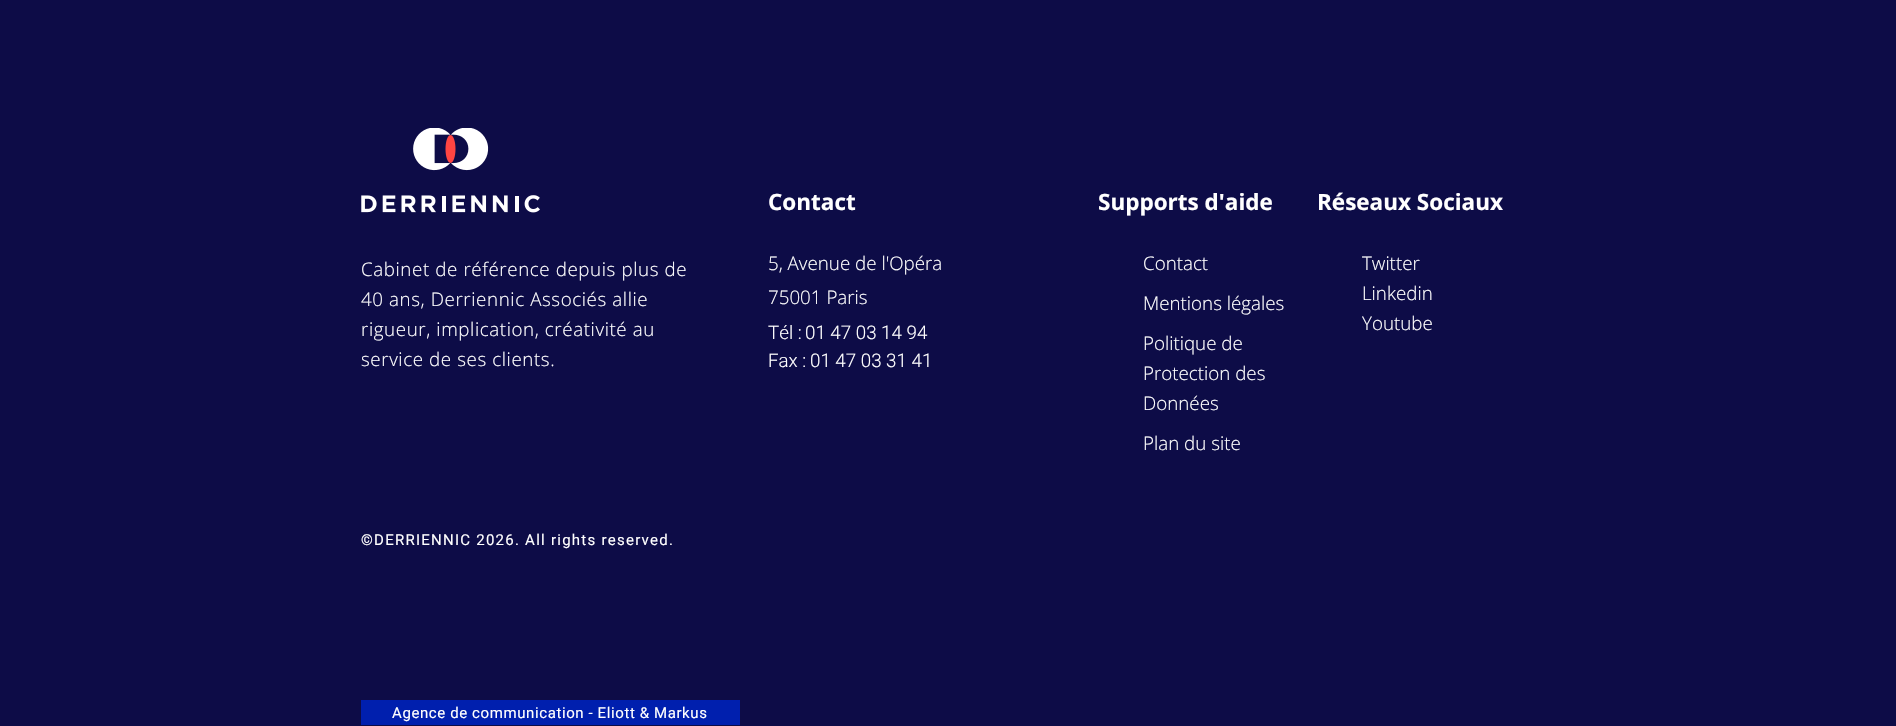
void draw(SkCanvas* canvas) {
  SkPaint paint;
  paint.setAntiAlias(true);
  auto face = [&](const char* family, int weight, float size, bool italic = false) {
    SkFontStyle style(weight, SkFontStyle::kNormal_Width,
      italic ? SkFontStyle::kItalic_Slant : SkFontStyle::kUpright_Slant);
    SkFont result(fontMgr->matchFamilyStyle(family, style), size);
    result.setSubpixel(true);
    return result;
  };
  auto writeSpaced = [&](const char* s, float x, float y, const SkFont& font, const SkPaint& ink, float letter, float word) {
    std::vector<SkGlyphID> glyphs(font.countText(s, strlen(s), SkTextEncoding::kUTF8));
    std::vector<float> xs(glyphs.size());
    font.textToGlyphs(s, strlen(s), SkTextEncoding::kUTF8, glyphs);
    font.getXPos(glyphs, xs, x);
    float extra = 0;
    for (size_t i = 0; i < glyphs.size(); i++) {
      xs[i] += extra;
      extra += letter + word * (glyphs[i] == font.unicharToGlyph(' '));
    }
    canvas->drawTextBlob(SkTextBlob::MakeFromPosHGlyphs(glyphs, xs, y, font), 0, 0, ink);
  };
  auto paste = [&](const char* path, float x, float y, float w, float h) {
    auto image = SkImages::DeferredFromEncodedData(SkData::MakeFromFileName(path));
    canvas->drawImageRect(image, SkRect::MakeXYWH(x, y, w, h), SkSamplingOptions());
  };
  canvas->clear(0xff0d0c47);
  paste("img/1.png", 361, 128, 179, 85);
  paint.setColor(0xff001fae);
  canvas->drawRect(SkRect::MakeXYWH(361, 700, 379, 25), paint);
  auto f0 = face("Open Sans", 300, 18.75f);
  paint.setColor(0xffffffff);
  {
    const struct { const char* s; float x, y; } items[] = {
      {"Cabinet de référence depuis plus de", 361, 276},
      {"40 ans, Derriennic Associés allie", 361, 306},
      {"rigueur, implication, créativité au", 361, 336},
      {"service de ses clients.", 361, 366},
    };
    for (auto [s, x, y] : items) {
      writeSpaced(s, x, y, f0, paint, 0.6f, 0);
    }
  }
  auto f1 = face("Open Sans", 700, 22.5f);
  canvas->drawString("Contact", 768, 210, f1, paint);
  canvas->drawString("5, Avenue de l'Opéra", 768, 270, f0, paint);
  canvas->drawString("75001 Paris", 768, 304, f0, paint);
  auto f2 = face("Roboto", 300, 18.75f);
  {
    const struct { const char* s; float x, y; } items[] = {
      {"Tél :", 768, 339},
      {"01 47 03 14 94", 805, 339},
      {"Fax :", 768, 367},
      {"01 47 03 31 41", 810, 367},
    };
    for (auto [s, x, y] : items) {
      canvas->drawString(s, x, y, f2, paint);
    }
  }
  canvas->drawString("Supports d'aide", 1098, 210, f1, paint);
  {
    const struct { const char* s; float x, y; } items[] = {
      {"Contact", 1143, 270},
      {"Mentions légales", 1143, 310},
      {"Politique de", 1143, 350},
      {"Protection des", 1143, 380},
      {"Données", 1143, 410},
      {"Plan du site", 1143, 450},
    };
    for (auto [s, x, y] : items) {
      canvas->drawString(s, x, y, f0, paint);
    }
  }
  canvas->drawString("Réseaux Sociaux", 1317, 210, f1, paint);
  {
    const struct { const char* s; float x, y; } items[] = {
      {"Twitter", 1362, 270},
      {"Linkedin", 1362, 300},
      {"Youtube", 1362, 330},
    };
    for (auto [s, x, y] : items) {
      canvas->drawString(s, x, y, f0, paint);
    }
  }
  auto f3 = face("Roboto", 400, 15);
  writeSpaced("©DERRIENNIC 2026. All rights reserved.", 361, 545, f3, paint, 1.25f, 0);
  writeSpaced("Agence de communication - Eliott & Markus", 392, 718, f3, paint, 0.6f, 0);
}
